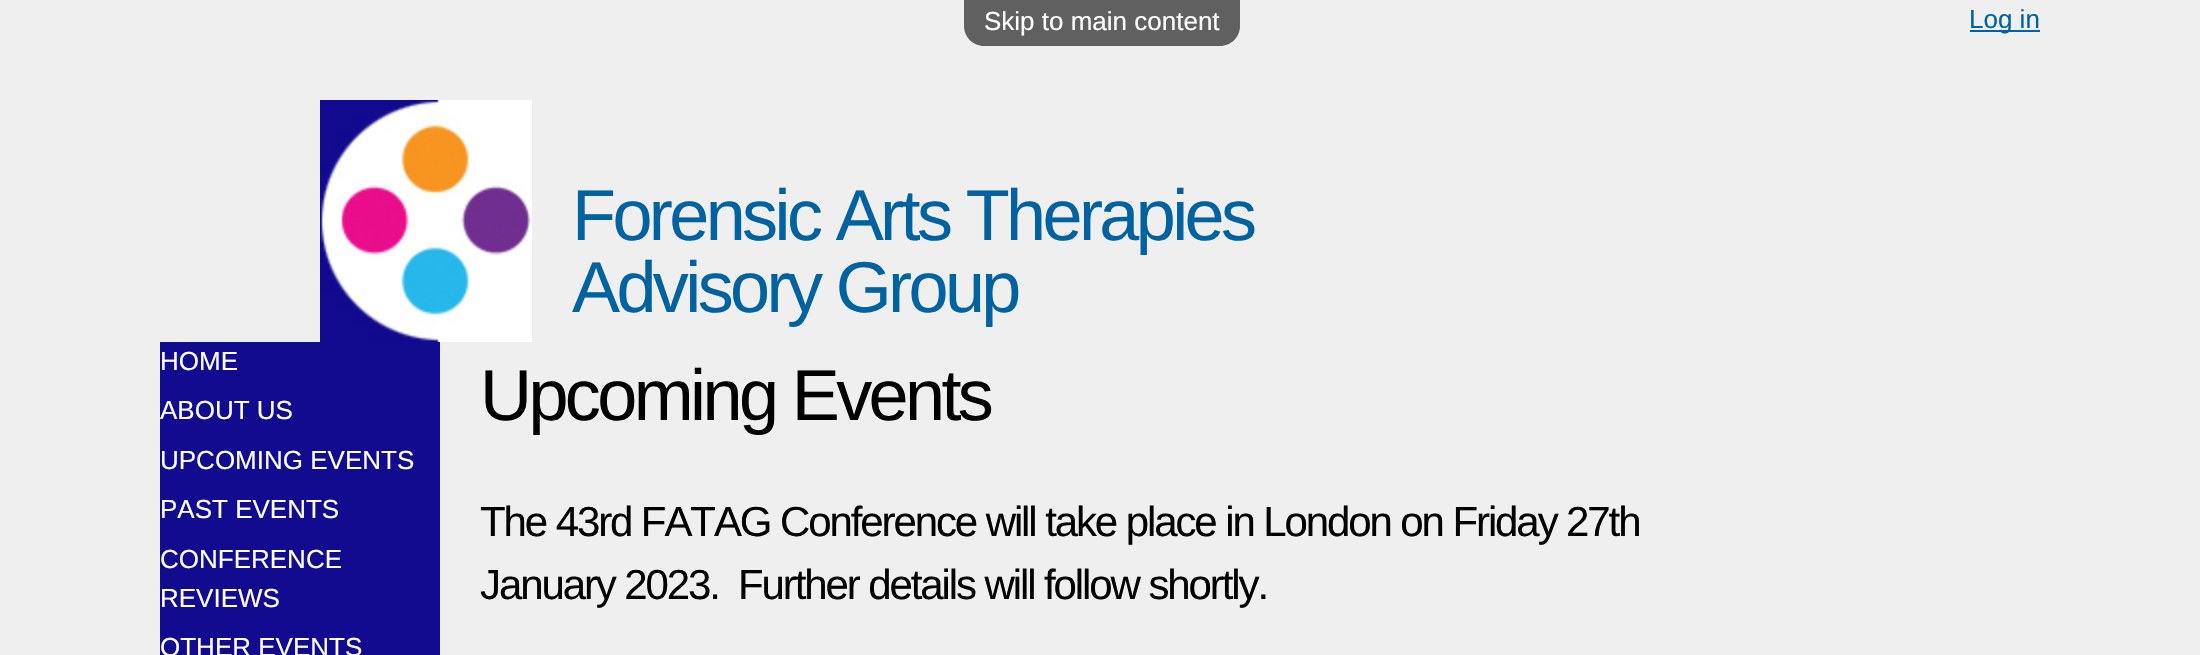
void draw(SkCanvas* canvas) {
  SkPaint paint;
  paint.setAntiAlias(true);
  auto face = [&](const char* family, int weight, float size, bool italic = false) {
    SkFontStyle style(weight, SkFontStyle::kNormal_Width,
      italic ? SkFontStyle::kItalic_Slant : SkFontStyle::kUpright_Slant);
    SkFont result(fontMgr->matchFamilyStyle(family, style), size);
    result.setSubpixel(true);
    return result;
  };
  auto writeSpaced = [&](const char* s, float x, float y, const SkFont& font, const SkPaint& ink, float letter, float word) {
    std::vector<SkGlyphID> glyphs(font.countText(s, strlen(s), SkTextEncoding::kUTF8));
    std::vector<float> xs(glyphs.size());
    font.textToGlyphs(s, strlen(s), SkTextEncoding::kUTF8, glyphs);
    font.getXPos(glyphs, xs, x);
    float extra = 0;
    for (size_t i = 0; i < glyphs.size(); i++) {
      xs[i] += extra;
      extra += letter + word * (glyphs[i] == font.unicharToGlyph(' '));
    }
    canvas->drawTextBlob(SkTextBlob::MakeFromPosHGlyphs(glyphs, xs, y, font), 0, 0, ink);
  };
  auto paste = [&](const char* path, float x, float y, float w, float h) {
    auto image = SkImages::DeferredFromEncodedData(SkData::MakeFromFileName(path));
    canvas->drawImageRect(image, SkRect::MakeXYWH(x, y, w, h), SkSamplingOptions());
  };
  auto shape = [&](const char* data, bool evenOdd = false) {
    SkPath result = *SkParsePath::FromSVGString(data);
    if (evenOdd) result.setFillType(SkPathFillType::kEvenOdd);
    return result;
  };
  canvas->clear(0xffefefef);
  paint.setColor(0xff0062a0);
  canvas->drawRect(SkRect::MakeXYWH(1970, 30, 70, 2), paint);
  paste("img/1.png", 320, 100, 212, 242);
  paint.setColor(0xff120b8f);
  canvas->drawRect(SkRect::MakeXYWH(160, 342, 280, 313), paint);
  paint.setColor(0xff606060);
  canvas->drawPath(shape("M964 0H1240V26C1240 37 1231 46 1220 46H984C973 46 964 37 964 26Z"), paint);
  auto f0 = face("Liberation Sans", 400, 26);
  paint.setColor(0xff0062a0);
  canvas->drawString("Log in", 1969, 28, f0, paint);
  auto f1 = face("Liberation Sans", 400, 72);
  writeSpaced("Forensic Arts Therapies", 572, 240, f1, paint, -3.6f, 0);
  writeSpaced("Advisory Group", 572, 312, f1, paint, -3.6f, 0);
  paint.setColor(0xffffffff);
  {
    const struct { const char* s; float x, y; } items[] = {
      {"HOME", 160, 370},
      {"ABOUT US", 160, 419},
      {"UPCOMING EVENTS", 160, 469},
      {"PAST EVENTS", 160, 518},
      {"CONFERENCE", 160, 568},
      {"REVIEWS", 160, 607},
      {"OTHER EVENTS", 160, 656},
    };
    for (auto [s, x, y] : items) {
      canvas->drawString(s, x, y, f0, paint);
    }
  }
  paint.setColor(0xff000000);
  writeSpaced("Upcoming Events", 480, 420, f1, paint, -3.6f, 0);
  auto f2 = face("Liberation Sans", 400, 42);
  writeSpaced("The 43rd FATAG Conference will take place in London on Friday 27th", 480, 536, f2, paint, -2.1f, 0);
  writeSpaced("January 2023.  Further details will follow shortly.", 480, 599, f2, paint, -2.1f, 0);
  paint.setColor(0xffffffff);
  canvas->drawString("Skip to main content", 984, 30, f0, paint);
}
